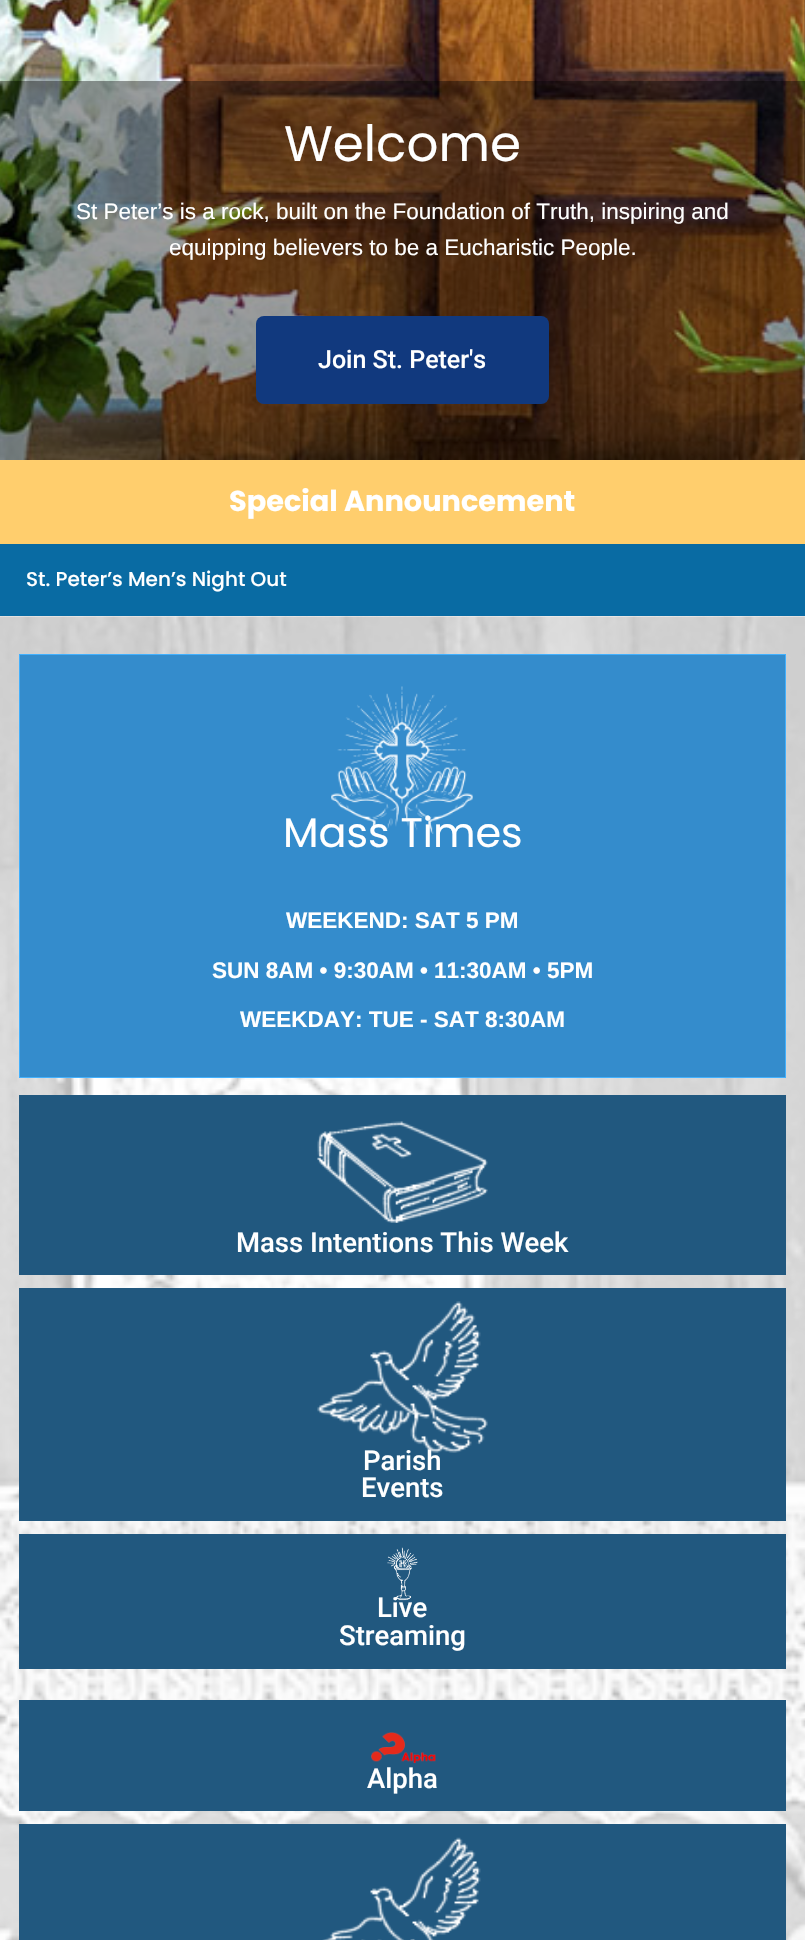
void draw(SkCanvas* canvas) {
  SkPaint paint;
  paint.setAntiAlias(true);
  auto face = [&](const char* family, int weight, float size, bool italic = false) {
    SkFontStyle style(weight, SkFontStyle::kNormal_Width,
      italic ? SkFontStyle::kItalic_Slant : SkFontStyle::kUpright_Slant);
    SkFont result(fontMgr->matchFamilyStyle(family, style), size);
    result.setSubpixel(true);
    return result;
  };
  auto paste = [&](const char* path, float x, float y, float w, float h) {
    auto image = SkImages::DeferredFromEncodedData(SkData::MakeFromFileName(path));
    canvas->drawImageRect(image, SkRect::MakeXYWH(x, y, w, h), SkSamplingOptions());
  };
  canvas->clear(0xffffffff);
  paste("img/1.png", 0, 616, 805, 1);
  paste("img/2.png", 0, 0, 805, 460);
  paint.setColor(0x63000000);
  canvas->drawRect(SkRect::MakeXYWH(0, 81, 805, 379), paint);
  paint.setColor(0xff11397e);
  canvas->drawRoundRect(SkRect::MakeXYWH(256, 316, 293, 88), 8, 8, paint);
  paint.setColor(0xffffce6d);
  canvas->drawRect(SkRect::MakeXYWH(0, 460, 805, 84), paint);
  paint.setColor(0xff096ba3);
  canvas->drawRect(SkRect::MakeXYWH(0, 544, 805, 72), paint);
  paste("img/3.png", 0, 616, 805, 1324);
  paint.setColor(0x7affffff);
  canvas->drawRect(SkRect::MakeXYWH(0, 616, 805, 1324), paint);
  paint.setColor(0xff348ccc);
  canvas->drawRect(SkRect::MakeXYWH(19.5f, 654.5f, 766, 423), paint);
  paint.setStroke(true);
  paint.setStrokeWidth(1);
  paint.setColor(0xff42b0fd);
  canvas->drawRect(SkRect::MakeXYWH(19.5f, 654.5f, 766, 423), paint);
  paste("img/4.png", 331, 686, 142, 148);
  paint.setStroke(false);
  paint.setColor(0xff21587f);
  canvas->drawRect(SkRect::MakeXYWH(19, 1095, 767, 180), paint);
  paste("img/5.png", 317, 1121, 171, 102);
  canvas->drawRect(SkRect::MakeXYWH(19, 1288, 767, 233), paint);
  paste("img/6.png", 317, 1301, 171, 152);
  canvas->drawRect(SkRect::MakeXYWH(19, 1534, 767, 135), paint);
  paste("img/7.png", 387, 1547, 31, 54);
  canvas->drawRect(SkRect::MakeXYWH(19, 1700, 767, 111), paint);
  paste("img/8.png", 371, 1732, 65, 32);
  canvas->drawRect(SkRect::MakeXYWH(19, 1824, 767, 116), paint);
  paste("img/9.png", 322, 1837, 159, 103);
  auto f0 = face("Poppins", 400, 50);
  paint.setColor(0xffffffff);
  canvas->drawString("Welcome", 284, 161, f0, paint);
  auto f1 = face("Liberation Sans", 400, 22.5f);
  canvas->drawString("St Peter’s is a rock, built on the Foundation of Truth, inspiring and", 76, 219, f1, paint);
  canvas->drawString("equipping believers to be a Eucharistic People.", 169, 255, f1, paint);
  auto f2 = face("Roboto", 500, 25);
  canvas->drawString("Join St. Peter's", 318, 368, f2, paint);
  auto f3 = face("Poppins", 700, 28.75f);
  canvas->drawString("Special Announcement", 229, 511, f3, paint);
  auto f4 = face("Poppins", 500, 20);
  canvas->drawString("St. Peter’s Men’s Night Out", 26, 586, f4, paint);
  auto f5 = face("Poppins", 400, 41.25f);
  canvas->drawString("Mass Times", 283, 847, f5, paint);
  auto f6 = face("Liberation Sans", 700, 22.5f);
  {
    const struct { const char* s; float x, y; } items[] = {
      {"WEEKEND: SAT 5 PM", 286, 928},
      {"SUN 8AM • 9:30AM • 11:30AM • 5PM", 212, 978},
      {"WEEKDAY: TUE - SAT 8:30AM", 240, 1027},
    };
    for (auto [s, x, y] : items) {
      canvas->drawString(s, x, y, f6, paint);
    }
  }
  auto f7 = face("Roboto", 500, 27.5f);
  {
    const struct { const char* s; float x, y; } items[] = {
      {"Mass Intentions This Week", 236, 1252},
      {"Parish", 363, 1470},
      {"Events", 361, 1497},
      {"Live", 377, 1617},
      {"Streaming", 339, 1645},
      {"Alpha", 367, 1788},
    };
    for (auto [s, x, y] : items) {
      canvas->drawString(s, x, y, f7, paint);
    }
  }
}
